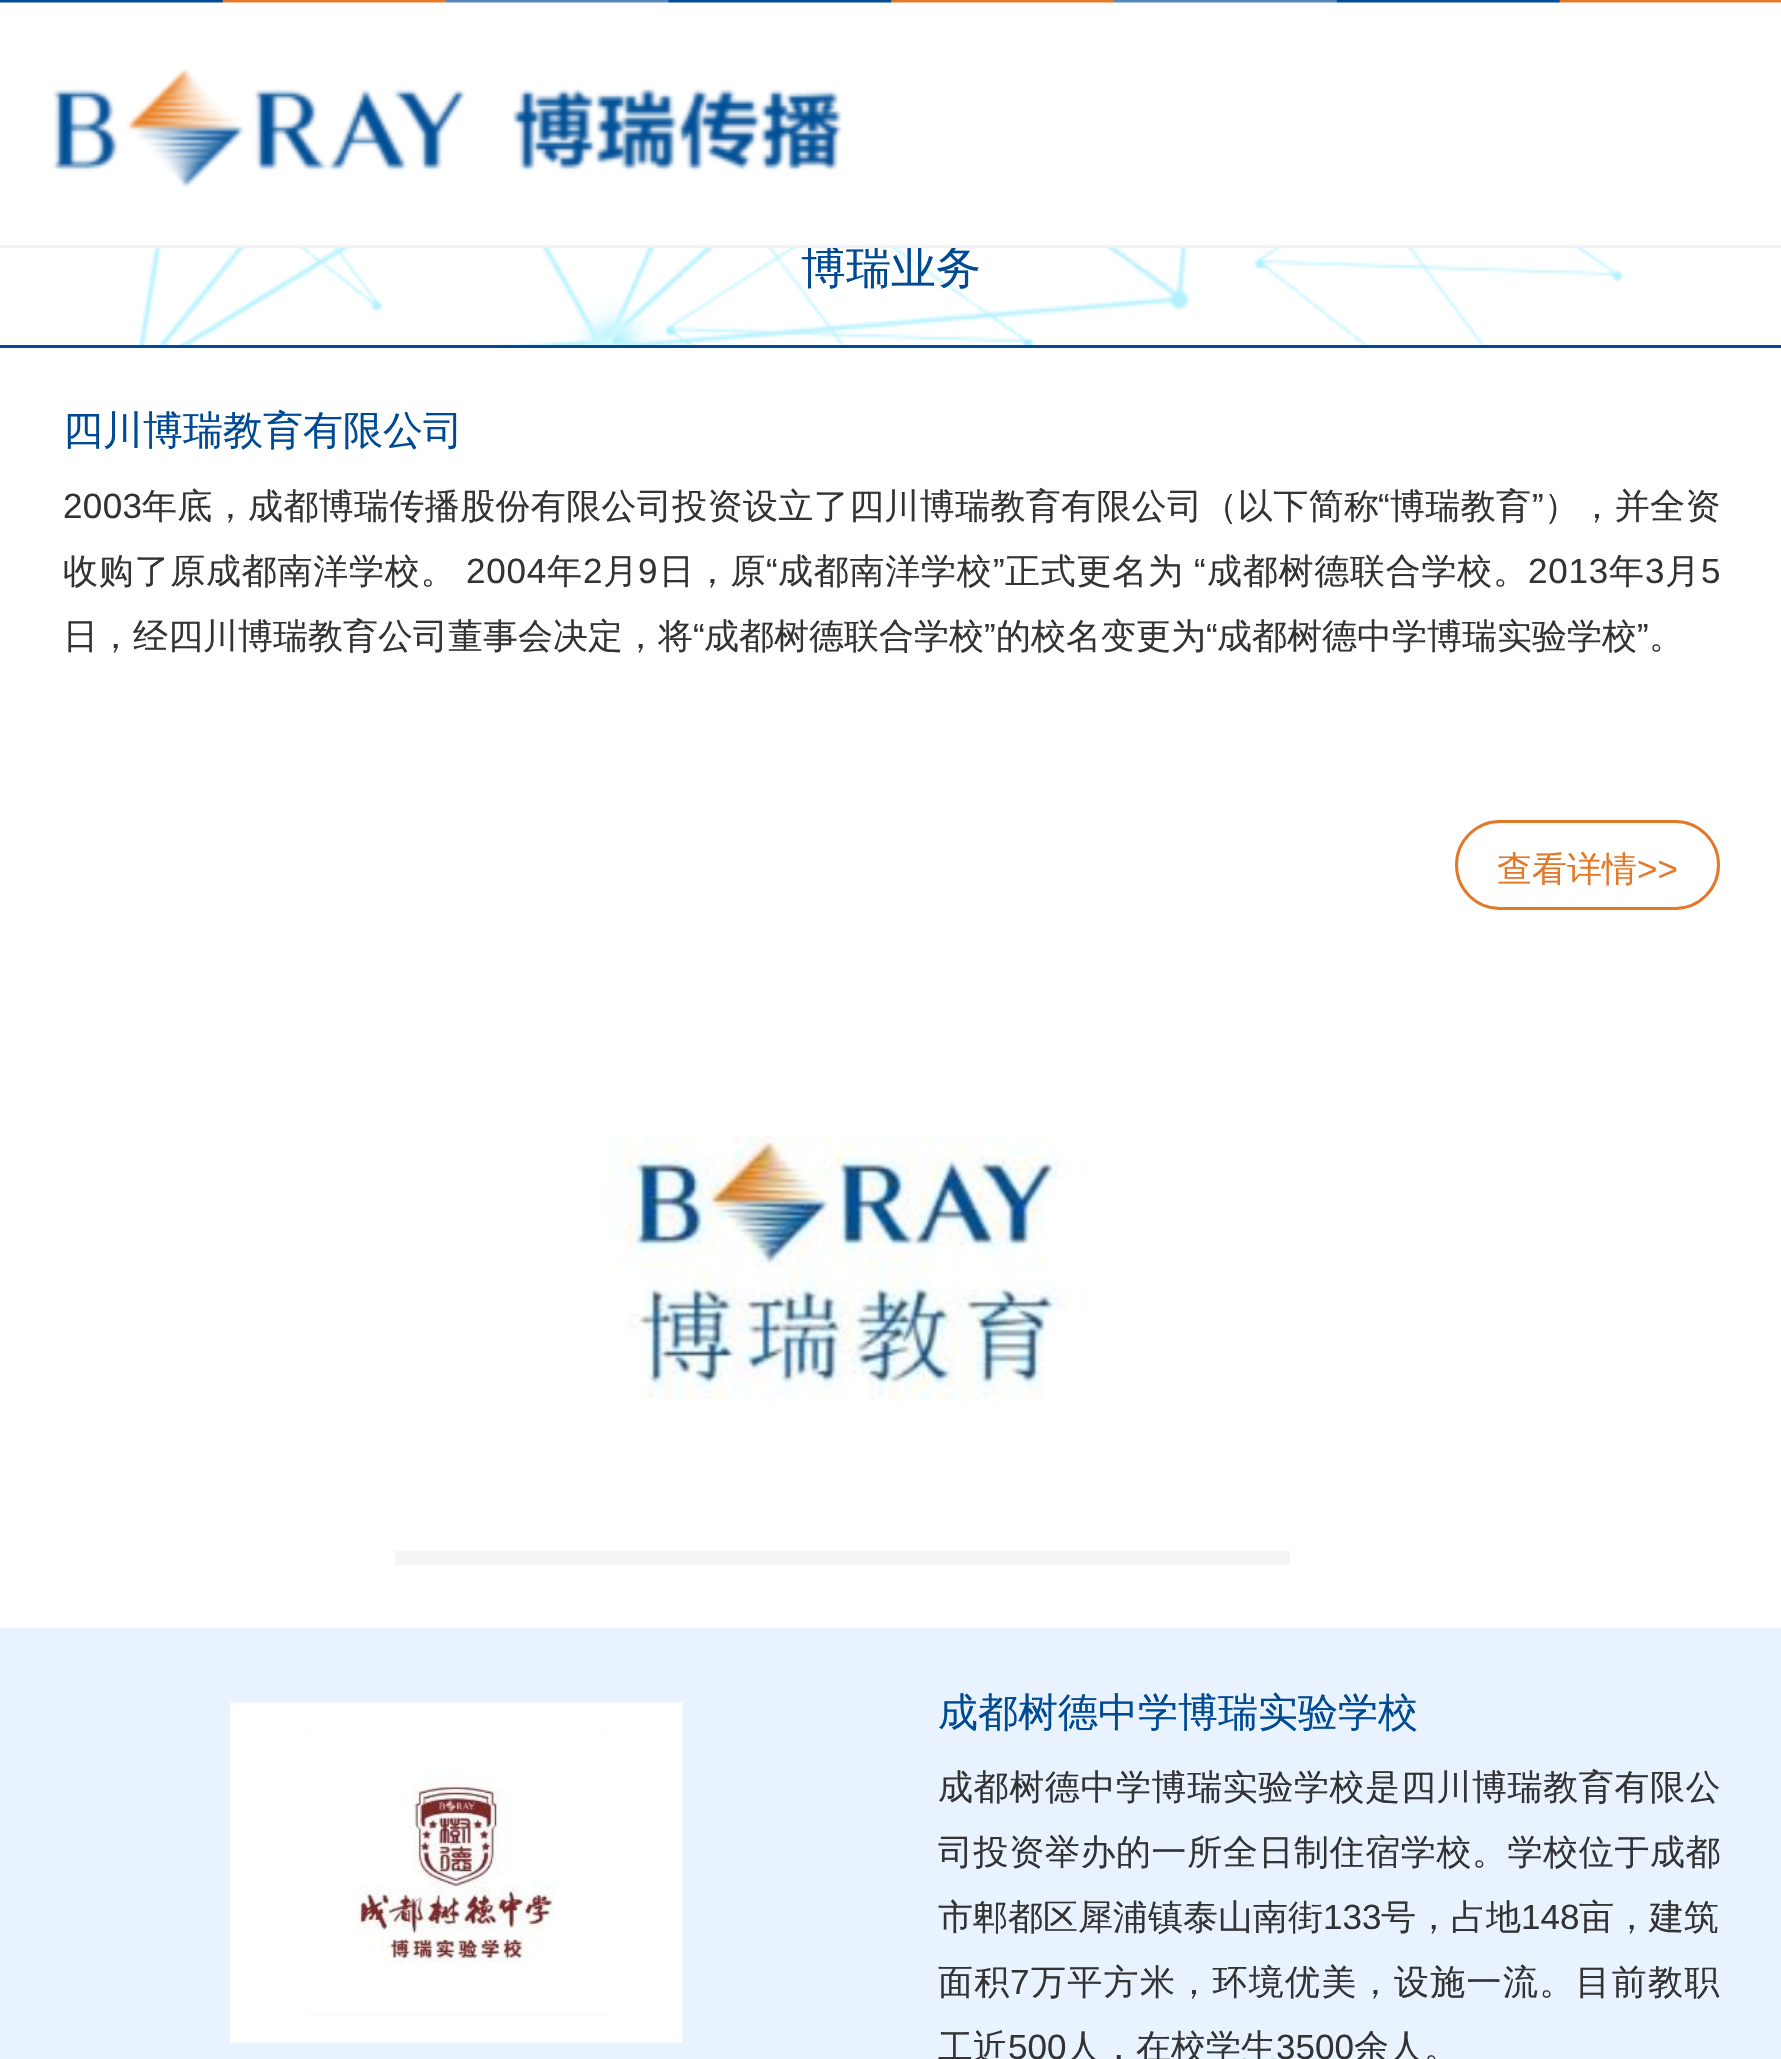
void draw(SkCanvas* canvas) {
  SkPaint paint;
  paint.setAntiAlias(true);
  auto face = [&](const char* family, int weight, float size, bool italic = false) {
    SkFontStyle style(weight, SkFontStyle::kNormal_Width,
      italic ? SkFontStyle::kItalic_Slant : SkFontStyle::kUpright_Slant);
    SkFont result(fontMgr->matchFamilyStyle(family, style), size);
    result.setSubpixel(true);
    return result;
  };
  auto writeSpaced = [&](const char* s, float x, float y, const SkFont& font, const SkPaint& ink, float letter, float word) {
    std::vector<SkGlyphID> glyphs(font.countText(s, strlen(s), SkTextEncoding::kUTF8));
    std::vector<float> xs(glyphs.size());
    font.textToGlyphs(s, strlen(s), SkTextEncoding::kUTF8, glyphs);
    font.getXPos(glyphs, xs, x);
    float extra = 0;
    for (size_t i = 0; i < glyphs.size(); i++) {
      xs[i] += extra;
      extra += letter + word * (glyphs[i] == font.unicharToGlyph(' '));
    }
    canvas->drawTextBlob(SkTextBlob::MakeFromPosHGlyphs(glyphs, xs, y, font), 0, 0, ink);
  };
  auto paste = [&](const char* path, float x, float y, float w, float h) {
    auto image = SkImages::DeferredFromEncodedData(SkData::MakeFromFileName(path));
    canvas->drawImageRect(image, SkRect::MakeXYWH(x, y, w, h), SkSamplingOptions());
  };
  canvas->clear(0xffffffff);
  paste("img/1.png", 0, 0, 1781, 3);
  paste("img/2.png", 52, 68, 791, 120);
  paint.setColor(0xff004a93);
  canvas->drawRect(SkRect::MakeXYWH(0, 345, 1781, 3), paint);
  paste("img/3.png", 137, 248, 1487, 97);
  paint.setStroke(true);
  paint.setStrokeWidth(3);
  paint.setColor(0xffe37828);
  canvas->drawRoundRect(SkRect::MakeXYWH(1456.5f, 821.5f, 262, 87), 43.5f, 43.5f, paint);
  paste("img/4.png", 395, 1134, 895, 431);
  paint.setStroke(false);
  paint.setColor(0xffe9f3ff);
  canvas->drawRect(SkRect::MakeXYWH(0, 1628, 1781, 431), paint);
  paste("img/5.png", 230, 1702, 453, 341);
  auto f0 = face("WenQuanYi Zen Hei", 500, 45);
  paint.setColor(0xff004a93);
  canvas->drawString("博瑞业务", 801, 283, f0, paint);
  paint.setColor(0xfff2f2f2);
  canvas->drawRect(SkRect::MakeXYWH(0, 245, 1781, 3), paint);
  auto f1 = face("WenQuanYi Zen Hei", 500, 40);
  paint.setColor(0xff004a93);
  canvas->drawString("四川博瑞教育有限公司", 63, 444, f1, paint);
  auto f2 = face("Liberation Sans", 400, 35);
  paint.setColor(0xff333333);
  writeSpaced("2003", 63, 518, f2, paint, 0.35f, 0);
  auto f3 = face("WenQuanYi Zen Hei", 500, 35);
  writeSpaced("年底，成都博瑞传播股份有限公司投资设立了四川博瑞教育有限公司（以下简称", 142, 518, f3, paint, 0.35f, 0);
  writeSpaced("“", 1378, 518, f2, paint, 0.35f, 0);
  writeSpaced("博瑞教育", 1390, 518, f3, paint, 0.35f, 0);
  writeSpaced("”", 1532, 518, f2, paint, 0.35f, 0);
  writeSpaced("），并全资", 1544, 518, f3, paint, 0.35f, 0);
  writeSpaced("收购了原成都南洋学校。", 63, 583, f3, paint, 0.75f, 0);
  writeSpaced("2004", 466, 583, f2, paint, 0.75f, 0);
  writeSpaced("年", 547, 583, f3, paint, 0.75f, 0);
  writeSpaced("2", 583, 583, f2, paint, 0.75f, 0);
  writeSpaced("月", 603, 583, f3, paint, 0.75f, 0);
  writeSpaced("9", 638, 583, f2, paint, 0.75f, 0);
  writeSpaced("日，原", 659, 583, f3, paint, 0.75f, 0);
  writeSpaced("“", 766, 583, f2, paint, 0.75f, 0);
  writeSpaced("成都南洋学校", 778, 583, f3, paint, 0.75f, 0);
  writeSpaced("”", 993, 583, f2, paint, 0.75f, 0);
  writeSpaced("正式更名为", 1005, 583, f3, paint, 0.75f, 0);
  writeSpaced("“", 1194, 583, f2, paint, 0.75f, 0);
  writeSpaced("成都树德联合学校。", 1207, 583, f3, paint, 0.75f, 0);
  writeSpaced("2013", 1528, 583, f2, paint, 0.75f, 0);
  writeSpaced("年", 1609, 583, f3, paint, 0.75f, 0);
  writeSpaced("3", 1645, 583, f2, paint, 0.75f, 0);
  writeSpaced("月", 1665, 583, f3, paint, 0.75f, 0);
  writeSpaced("5", 1701, 583, f2, paint, 0.75f, 0);
  canvas->drawString("日，经四川博瑞教育公司董事会决定，将", 63, 648, f3, paint);
  canvas->drawString("“", 693, 648, f2, paint);
  canvas->drawString("成都树德联合学校", 704, 648, f3, paint);
  canvas->drawString("”", 984, 648, f2, paint);
  canvas->drawString("的校名变更为", 996, 648, f3, paint);
  canvas->drawString("“", 1206, 648, f2, paint);
  canvas->drawString("成都树德中学博瑞实验学校", 1217, 648, f3, paint);
  canvas->drawString("”", 1637, 648, f2, paint);
  canvas->drawString("。", 1649, 648, f3, paint);
  paint.setColor(0xffe37828);
  canvas->drawString("查看详情", 1497, 881, f3, paint);
  canvas->drawString(">>", 1637, 881, f2, paint);
  paint.setColor(0xff004a93);
  canvas->drawString("成都树德中学博瑞实验学校", 938, 1726, f1, paint);
  paint.setColor(0xff333333);
  writeSpaced("成都树德中学博瑞实验学校是四川博瑞教育有限公", 938, 1799, f3, paint, 0.6f, 0);
  writeSpaced("司投资举办的一所全日制住宿学校。学校位于成都", 938, 1864, f3, paint, 0.6f, 0);
  canvas->drawString("市郫都区犀浦镇泰山南街", 938, 1929, f3, paint);
  canvas->drawString("133", 1323, 1929, f2, paint);
  canvas->drawString("号，占地", 1381, 1929, f3, paint);
  canvas->drawString("148", 1521, 1929, f2, paint);
  canvas->drawString("亩，建筑", 1579, 1929, f3, paint);
  writeSpaced("面积", 938, 1994, f3, paint, 1.3f, 0);
  writeSpaced("7", 1010, 1994, f2, paint, 1.3f, 0);
  writeSpaced("万平方米，环境优美，设施一流。目前教职", 1031, 1994, f3, paint, 1.3f, 0);
  canvas->drawString("工近", 938, 2059, f3, paint);
  canvas->drawString("500", 1008, 2059, f2, paint);
  canvas->drawString("人，在校学生", 1066, 2059, f3, paint);
  canvas->drawString("3500", 1276, 2059, f2, paint);
  canvas->drawString("余人。", 1354, 2059, f3, paint);
}
